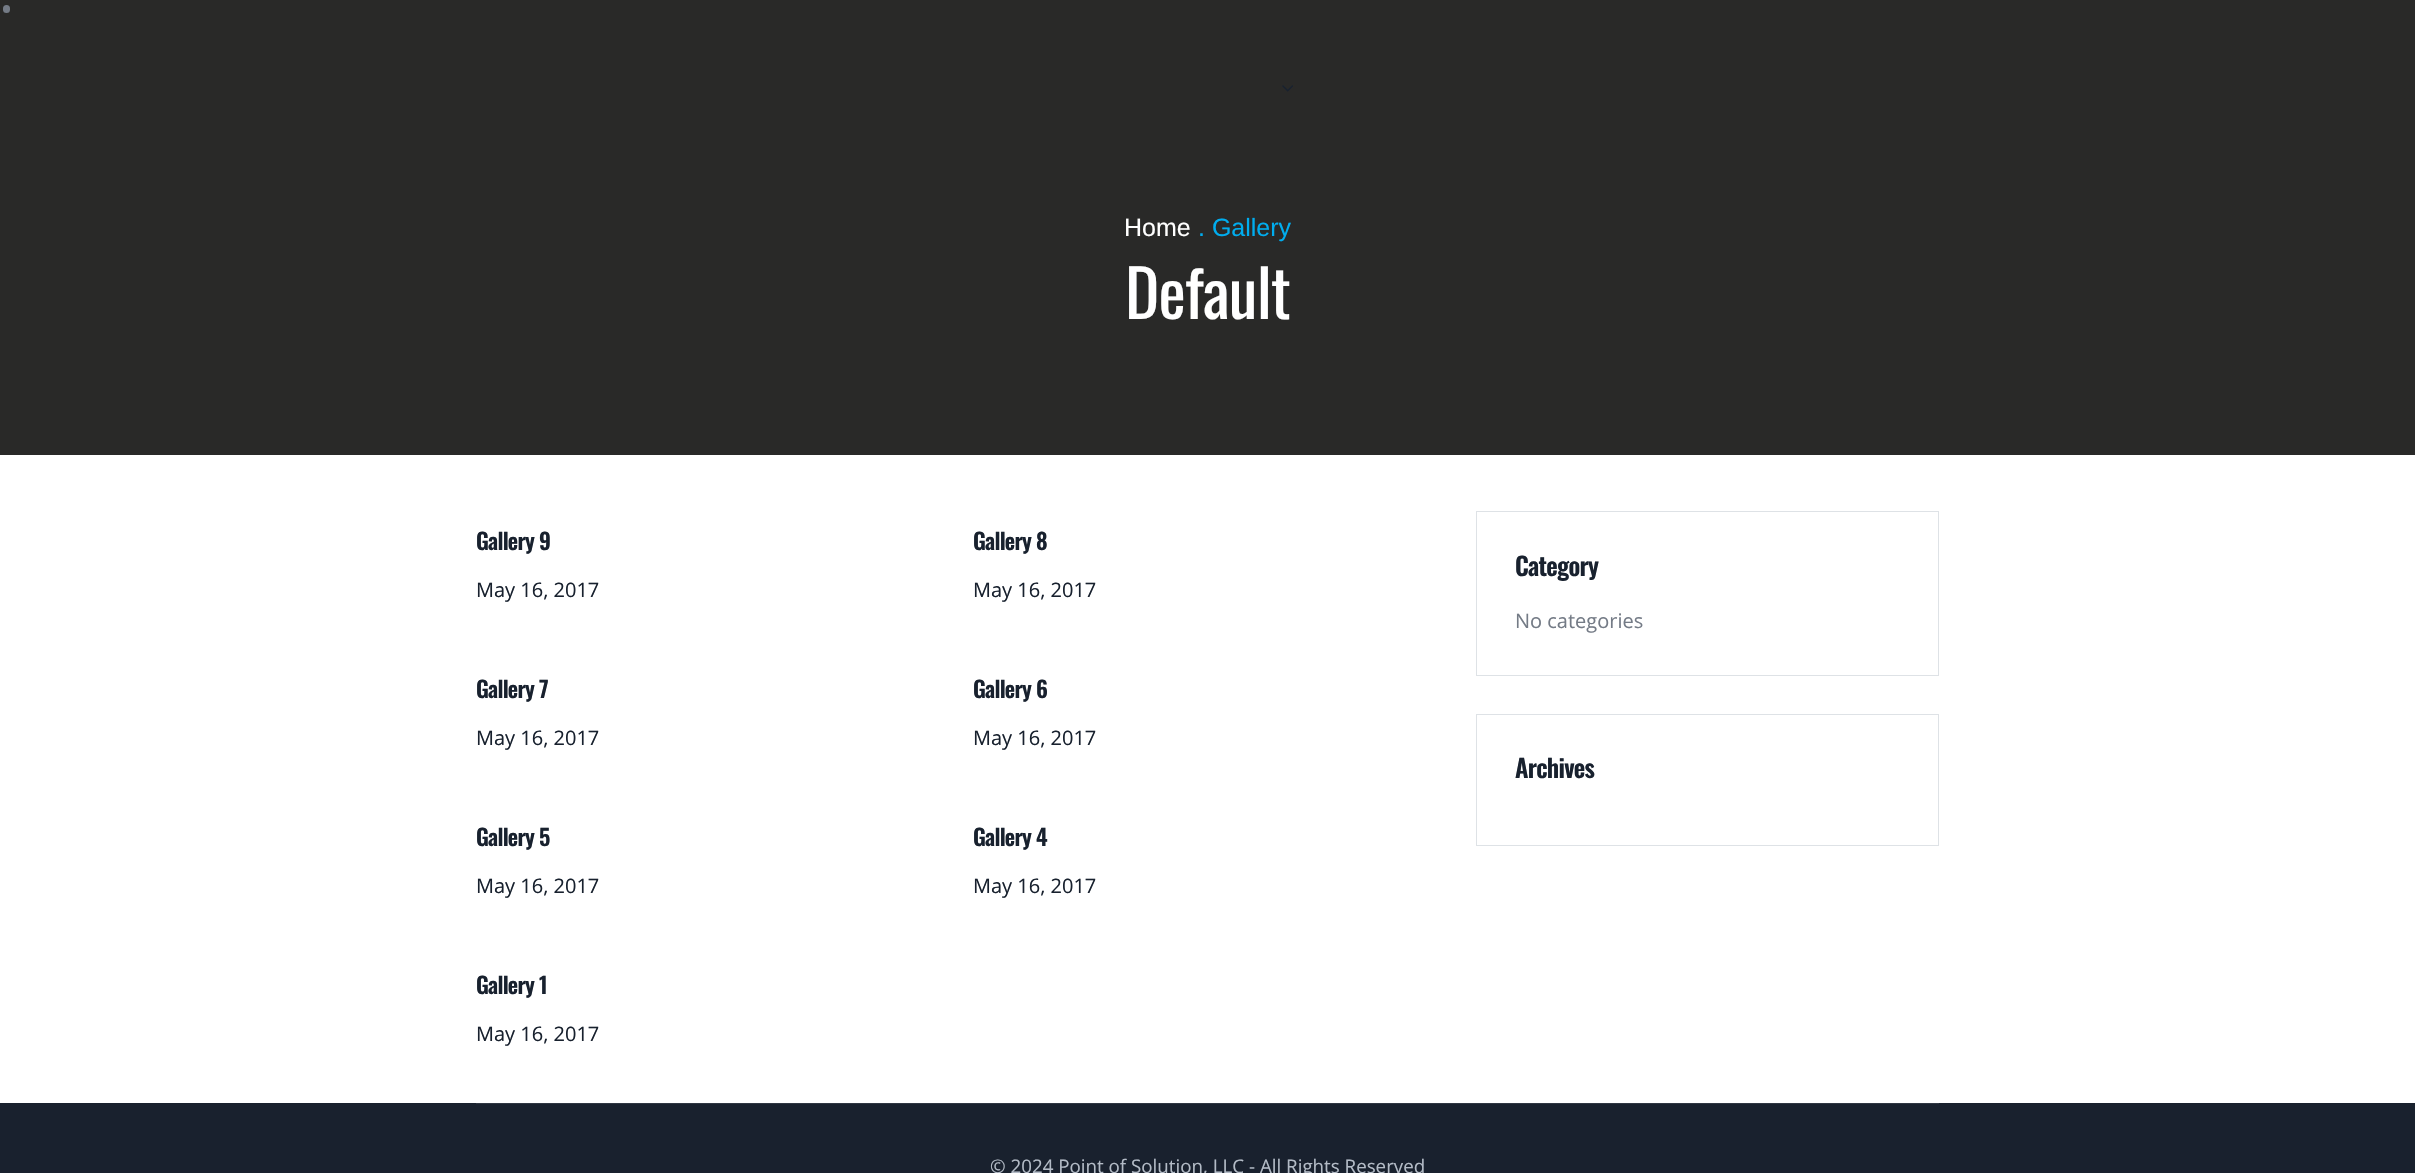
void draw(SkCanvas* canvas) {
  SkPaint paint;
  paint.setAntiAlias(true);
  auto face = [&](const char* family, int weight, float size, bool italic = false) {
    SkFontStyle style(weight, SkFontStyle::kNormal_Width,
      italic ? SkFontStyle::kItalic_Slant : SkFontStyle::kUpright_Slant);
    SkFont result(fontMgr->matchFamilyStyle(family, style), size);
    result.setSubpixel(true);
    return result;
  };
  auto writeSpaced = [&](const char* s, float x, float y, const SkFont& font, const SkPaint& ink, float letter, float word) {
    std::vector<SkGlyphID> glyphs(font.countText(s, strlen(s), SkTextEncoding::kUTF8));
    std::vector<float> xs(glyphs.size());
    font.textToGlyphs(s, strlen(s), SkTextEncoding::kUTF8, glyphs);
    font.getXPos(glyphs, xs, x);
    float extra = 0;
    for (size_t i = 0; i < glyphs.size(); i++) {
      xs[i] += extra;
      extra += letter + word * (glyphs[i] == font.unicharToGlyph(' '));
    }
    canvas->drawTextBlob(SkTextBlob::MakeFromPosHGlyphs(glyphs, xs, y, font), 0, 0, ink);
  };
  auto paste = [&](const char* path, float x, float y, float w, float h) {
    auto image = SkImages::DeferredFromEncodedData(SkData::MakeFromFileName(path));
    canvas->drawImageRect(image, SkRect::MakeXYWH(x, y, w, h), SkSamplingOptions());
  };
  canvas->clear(0xffffffff);
  paint.setColor(0xff292928);
  canvas->drawRect(SkRect::MakeXYWH(0, 0, 2415, 455), paint);
  paint.setColor(0xff747b86);
  canvas->drawRoundRect(SkRect::MakeXYWH(3, 5, 7, 8), 3.5f, 3.5f, paint);
  paste("img/1.png", 1282, 85, 11, 7);
  paint.setStroke(true);
  paint.setStrokeWidth(1);
  paint.setColor(0xffdee2e6);
  canvas->drawRect(SkRect::MakeXYWH(1476.5f, 511.5f, 462, 164), paint);
  canvas->drawRect(SkRect::MakeXYWH(1476.5f, 714.5f, 462, 131), paint);
  paint.setStroke(false);
  paint.setColor(0xff19212e);
  canvas->drawRect(SkRect::MakeXYWH(0, 1103, 2415, 70), paint);
  paint.setColor(0xff303743);
  canvas->drawRect(SkRect::MakeXYWH(476, 1103, 1463, 1), paint);
  auto f0 = face("Liberation Sans", 400, 25);
  paint.setColor(0xffffffff);
  canvas->drawString("Home", 1124, 236, f0, paint);
  paint.setColor(0xff00adef);
  canvas->drawString(". Gallery", 1198, 236, f0, paint);
  auto f1 = face("Oswald", 400, 65);
  paint.setColor(0xffffffff);
  writeSpaced("Default", 1125, 319, f1, paint, -0.75f, 0);
  auto f2 = face("Oswald", 600, 22.5f);
  paint.setColor(0xff18212e);
  writeSpaced("Gallery 9", 476, 550, f2, paint, -0.75f, 0);
  auto f3 = face("Open Sans", 400, 20);
  canvas->drawString("May 16, 2017", 476, 597, f3, paint);
  writeSpaced("Gallery 8", 973, 550, f2, paint, -0.75f, 0);
  canvas->drawString("May 16, 2017", 973, 597, f3, paint);
  writeSpaced("Gallery 7", 476, 698, f2, paint, -0.75f, 0);
  canvas->drawString("May 16, 2017", 476, 745, f3, paint);
  writeSpaced("Gallery 6", 973, 698, f2, paint, -0.75f, 0);
  canvas->drawString("May 16, 2017", 973, 745, f3, paint);
  writeSpaced("Gallery 5", 476, 846, f2, paint, -0.75f, 0);
  canvas->drawString("May 16, 2017", 476, 893, f3, paint);
  writeSpaced("Gallery 4", 973, 846, f2, paint, -0.75f, 0);
  canvas->drawString("May 16, 2017", 973, 893, f3, paint);
  writeSpaced("Gallery 1", 476, 994, f2, paint, -0.75f, 0);
  canvas->drawString("May 16, 2017", 476, 1041, f3, paint);
  auto f4 = face("Oswald", 600, 25);
  writeSpaced("Category", 1515, 576, f4, paint, -0.75f, 0);
  paint.setColor(0xff747b86);
  canvas->drawString("No categories", 1515, 628, f3, paint);
  paint.setColor(0xff18212e);
  writeSpaced("Archives", 1515, 778, f4, paint, -0.75f, 0);
  auto f5 = face("Open Sans", 400, 18.75f);
  paint.setColor(0xffb3bbc6);
  canvas->drawString("© 2024 Point of Solution, LLC - All Rights Reserved", 990, 1173, f5, paint);
}
